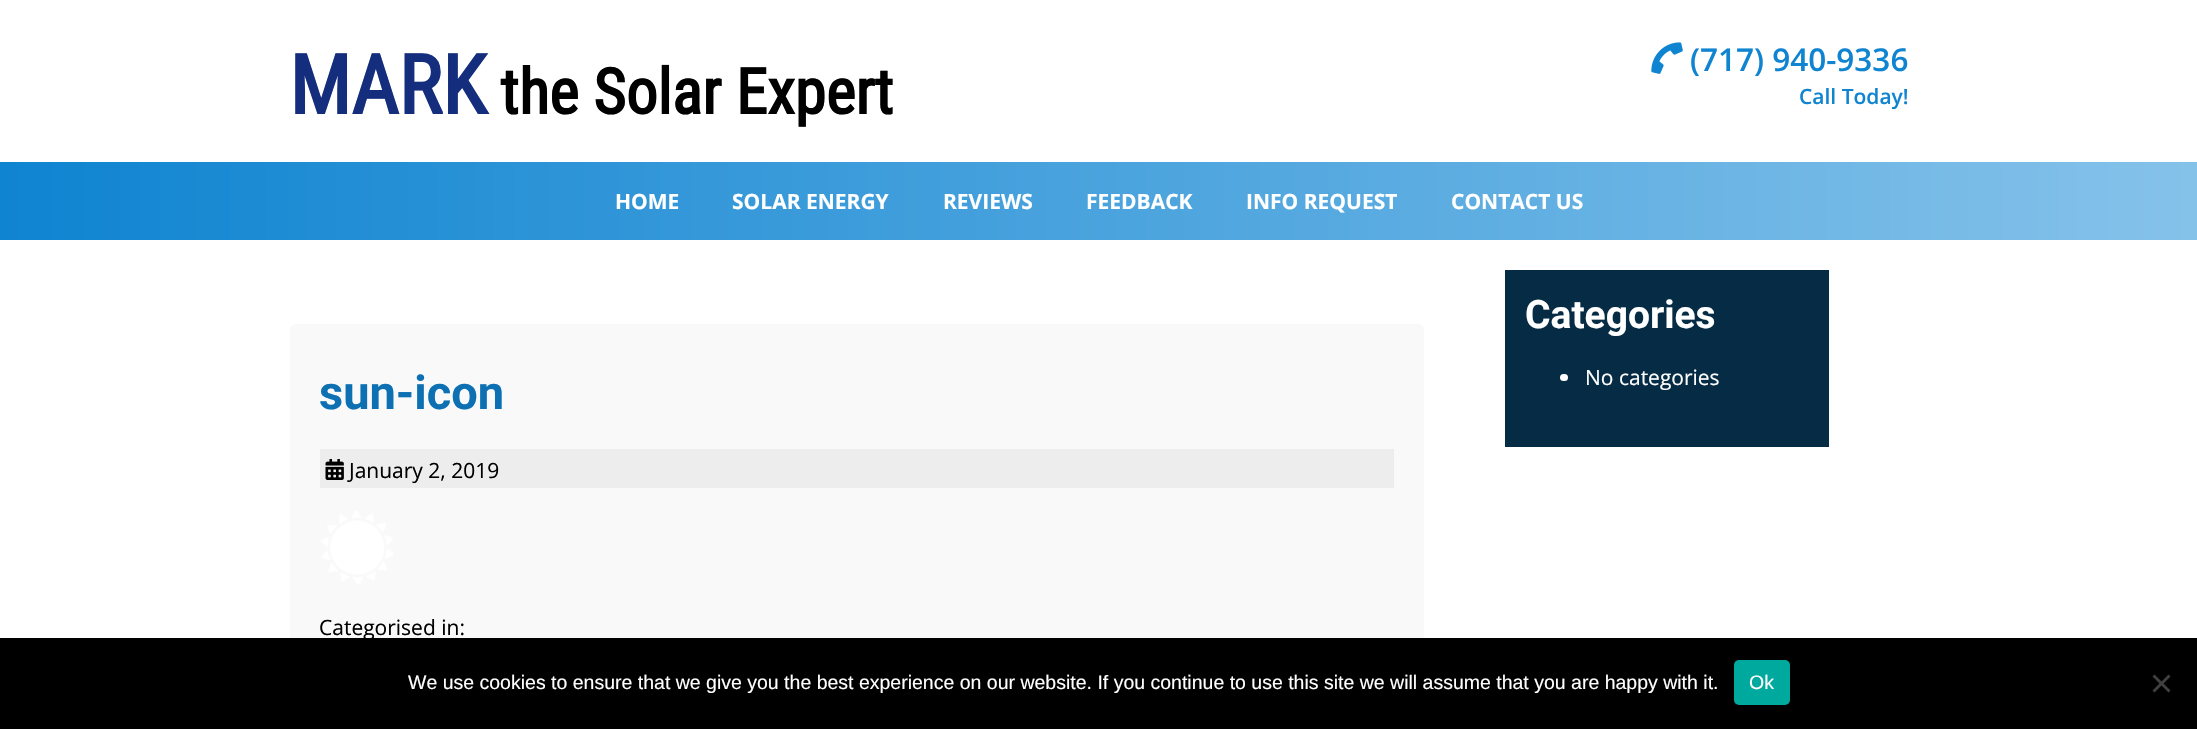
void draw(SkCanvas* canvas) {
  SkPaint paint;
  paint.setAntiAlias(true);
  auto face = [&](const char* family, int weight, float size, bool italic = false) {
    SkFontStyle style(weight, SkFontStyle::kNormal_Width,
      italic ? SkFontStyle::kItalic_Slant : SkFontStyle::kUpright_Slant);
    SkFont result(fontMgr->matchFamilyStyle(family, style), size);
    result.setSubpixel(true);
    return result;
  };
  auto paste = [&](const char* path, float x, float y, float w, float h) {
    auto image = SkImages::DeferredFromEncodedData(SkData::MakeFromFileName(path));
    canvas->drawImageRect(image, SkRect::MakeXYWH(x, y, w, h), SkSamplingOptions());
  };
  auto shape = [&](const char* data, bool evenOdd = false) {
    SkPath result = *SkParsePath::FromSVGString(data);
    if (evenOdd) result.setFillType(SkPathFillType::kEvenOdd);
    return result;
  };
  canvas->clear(0xffffffff);
  paste("img/1.png", 1651, 42, 32, 32);
  {
    const SkColor colors[] = {0xff0f84d1, 0xff85c2ea};
    const float stops[] = {0, 1};
    const SkPoint ends[] = {{0, 201}, {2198, 201}};
    paint.setShader(SkGradientShader::MakeLinear(ends, colors, stops, 2, SkTileMode::kClamp));
    paint.setAlpha(255);
  }
  canvas->drawRect(SkRect::MakeXYWH(0, 162, 2197, 78), paint);
  paint.setShader(nullptr);
  paint.setColor(0xff062b44);
  canvas->drawRect(SkRect::MakeXYWH(1505, 270, 324, 177), paint);
  paint.setColor(0xffffffff);
  canvas->drawRoundRect(SkRect::MakeXYWH(1560, 374, 8, 7), 3.5f, 3.5f, paint);
  paint.setColor(0xfff9f9f9);
  canvas->drawRoundRect(SkRect::MakeXYWH(290, 324, 1134, 357), 6, 6, paint);
  paint.setColor(0xffededed);
  canvas->drawRect(SkRect::MakeXYWH(320, 449, 1074, 39), paint);
  paste("img/2.png", 325, 459, 19, 21);
  paste("img/3.png", 321, 511, 72, 73);
  paint.setColor(0xff000000);
  canvas->drawRect(SkRect::MakeXYWH(0, 638, 2197, 91), paint);
  paint.setColor(0xff00a99d);
  canvas->drawRoundRect(SkRect::MakeXYWH(1734, 660, 56, 45), 5, 5, paint);
  paint.setColor(0xff404040);
  canvas->drawPath(shape("M2168.5 674.5L2170.5 676.5L2154.5 692.5L2152.5 690.5Z"), paint);
  canvas->drawPath(shape("M2152.5 676.5L2154.5 674.5L2170.5 690.5L2168.5 692.5Z"), paint);
  auto f0 = face("Roboto Condensed", 700, 82);
  paint.setColor(0xff142e7d);
  canvas->drawString("MARK", 289, 114, f0, paint);
  auto f1 = face("Roboto Condensed", 700, 63);
  paint.setColor(0xff000000);
  canvas->drawString("the Solar Expert", 500, 114, f1, paint);
  auto f2 = face("Open Sans", 600, 31.5f);
  paint.setColor(0xff0f84d1);
  canvas->drawString("(717) 940-9336", 1690, 71, f2, paint);
  auto f3 = face("Open Sans", 600, 21);
  canvas->drawString("Call Today!", 1799, 104, f3, paint);
  auto f4 = face("Open Sans", 700, 21);
  paint.setColor(0xffffffff);
  {
    const struct { const char* s; float x, y; } items[] = {
      {"HOME", 615, 209},
      {"SOLAR ENERGY", 732, 209},
      {"REVIEWS", 943, 209},
      {"FEEDBACK", 1086, 209},
      {"INFO REQUEST", 1246, 209},
      {"CONTACT US", 1451, 209},
    };
    for (auto [s, x, y] : items) {
      canvas->drawString(s, x, y, f4, paint);
    }
  }
  auto f5 = face("Roboto", 700, 39);
  canvas->drawString("Categories", 1525, 328, f5, paint);
  auto f6 = face("Open Sans", 400, 21);
  canvas->drawString("No categories", 1585, 385, f6, paint);
  auto f7 = face("Roboto", 700, 47);
  paint.setColor(0xff0c70b3);
  canvas->drawString("sun-icon", 319, 409, f7, paint);
  paint.setColor(0xff000000);
  canvas->drawString("January 2, 2019", 349, 478, f6, paint);
  canvas->drawString("Categorised in:", 319, 635, f6, paint);
  auto f8 = face("Liberation Sans", 400, 19.5f);
  paint.setColor(0xffffffff);
  canvas->drawString("We use cookies to ensure that we give you the best experience on our website. If you continue to use this site we will assume that you are happy with it.", 408, 689, f8, paint);
  canvas->drawString("Ok", 1749, 689, f8, paint);
}
